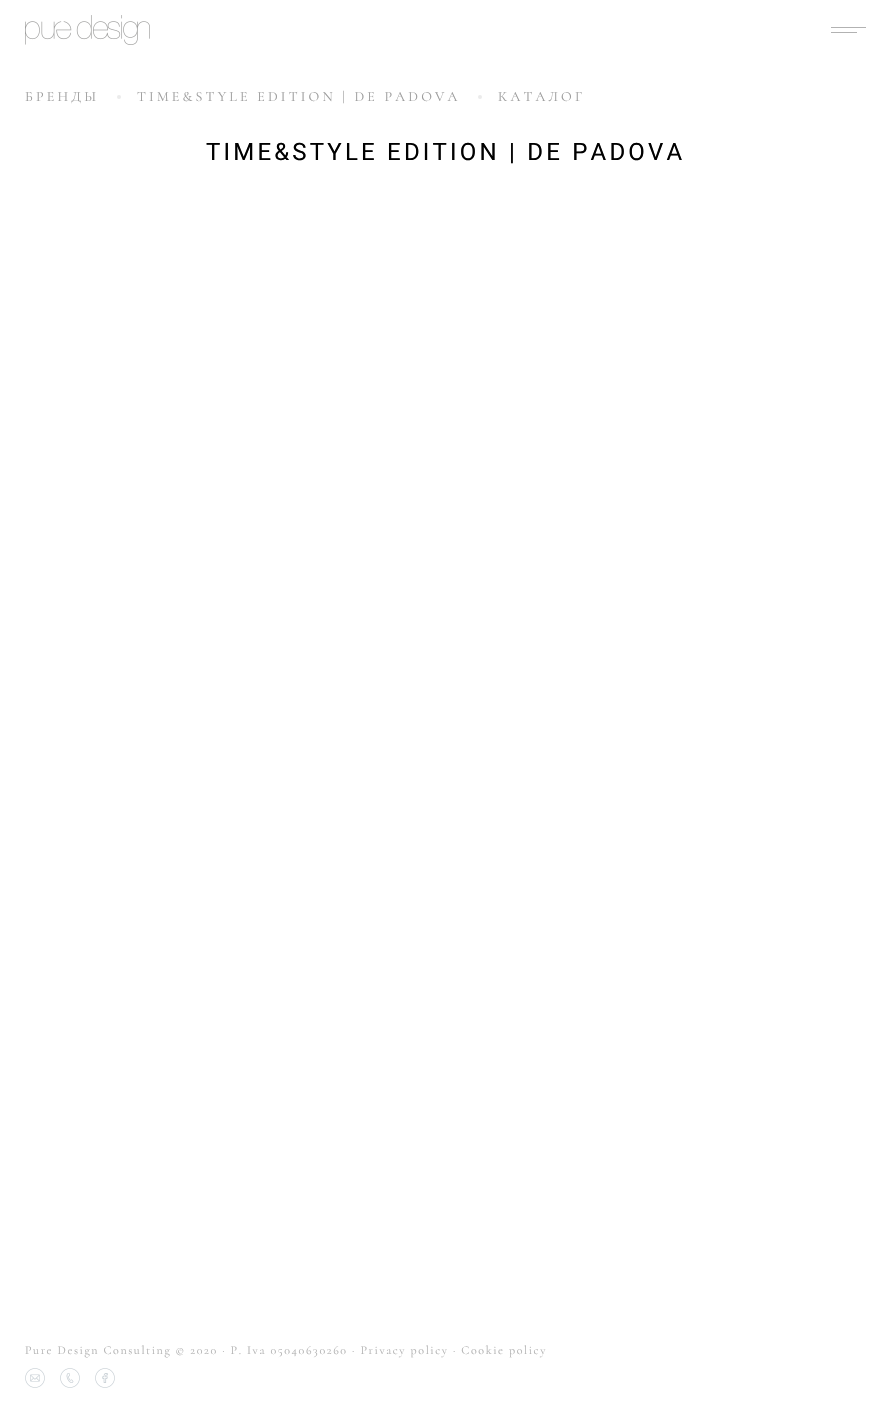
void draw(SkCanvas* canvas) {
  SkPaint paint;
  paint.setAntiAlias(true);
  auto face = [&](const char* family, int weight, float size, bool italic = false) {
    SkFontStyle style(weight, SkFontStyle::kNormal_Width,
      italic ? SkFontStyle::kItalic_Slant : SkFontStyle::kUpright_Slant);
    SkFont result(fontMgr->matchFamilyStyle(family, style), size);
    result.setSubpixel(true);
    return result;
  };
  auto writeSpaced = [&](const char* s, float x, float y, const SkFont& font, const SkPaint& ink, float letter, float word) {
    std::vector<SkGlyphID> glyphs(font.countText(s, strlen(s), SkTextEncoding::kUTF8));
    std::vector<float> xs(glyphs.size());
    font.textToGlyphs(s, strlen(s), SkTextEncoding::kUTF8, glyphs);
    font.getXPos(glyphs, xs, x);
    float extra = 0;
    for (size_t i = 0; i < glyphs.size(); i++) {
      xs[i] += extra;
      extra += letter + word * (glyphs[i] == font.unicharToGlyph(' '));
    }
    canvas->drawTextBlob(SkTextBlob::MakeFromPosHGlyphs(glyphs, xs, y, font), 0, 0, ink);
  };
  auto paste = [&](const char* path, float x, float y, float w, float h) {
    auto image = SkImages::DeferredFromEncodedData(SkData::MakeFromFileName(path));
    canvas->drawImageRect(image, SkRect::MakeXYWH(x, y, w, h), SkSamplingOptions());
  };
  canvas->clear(0xffffffff);
  paste("img/1.png", 25, 15, 125, 30);
  paint.setColor(0xffb2b2b2);
  canvas->drawRect(SkRect::MakeXYWH(831, 27, 35, 1), paint);
  canvas->drawRect(SkRect::MakeXYWH(831, 32, 26, 1), paint);
  paint.setColor(0xffebebeb);
  canvas->drawCircle(119, 97, 2, paint);
  canvas->drawCircle(480, 97, 2, paint);
  paste("img/2.png", 25, 1368, 20, 20);
  paste("img/3.png", 60, 1368, 20, 20);
  paste("img/4.png", 95, 1368, 20, 20);
  auto f0 = face("Cormorant", 300, 14);
  paint.setColor(0xff9d9d9d);
  {
    const struct { const char* s; float x, y; } items[] = {
      {"БРЕНДЫ", 25, 101},
      {"TIME&STYLE EDITION | DE PADOVA", 137, 101},
      {"КАТАЛОГ", 498, 101},
    };
    for (auto [s, x, y] : items) {
      writeSpaced(s, x, y, f0, paint, 3.2f, 0);
    }
  }
  auto f1 = face("Roboto", 400, 24);
  paint.setColor(0xff000000);
  writeSpaced("TIME&STYLE EDITION | DE PADOVA", 206, 160, f1, paint, 3.2f, 0);
  auto f2 = face("Cormorant", 300, 12);
  paint.setColor(0xffb2b2b2);
  writeSpaced("Pure Design Consulting © 2020 · P. Iva 05040630260 · Privacy policy · Cookie policy", 25, 1354, f2, paint, 1.6f, 0);
}
